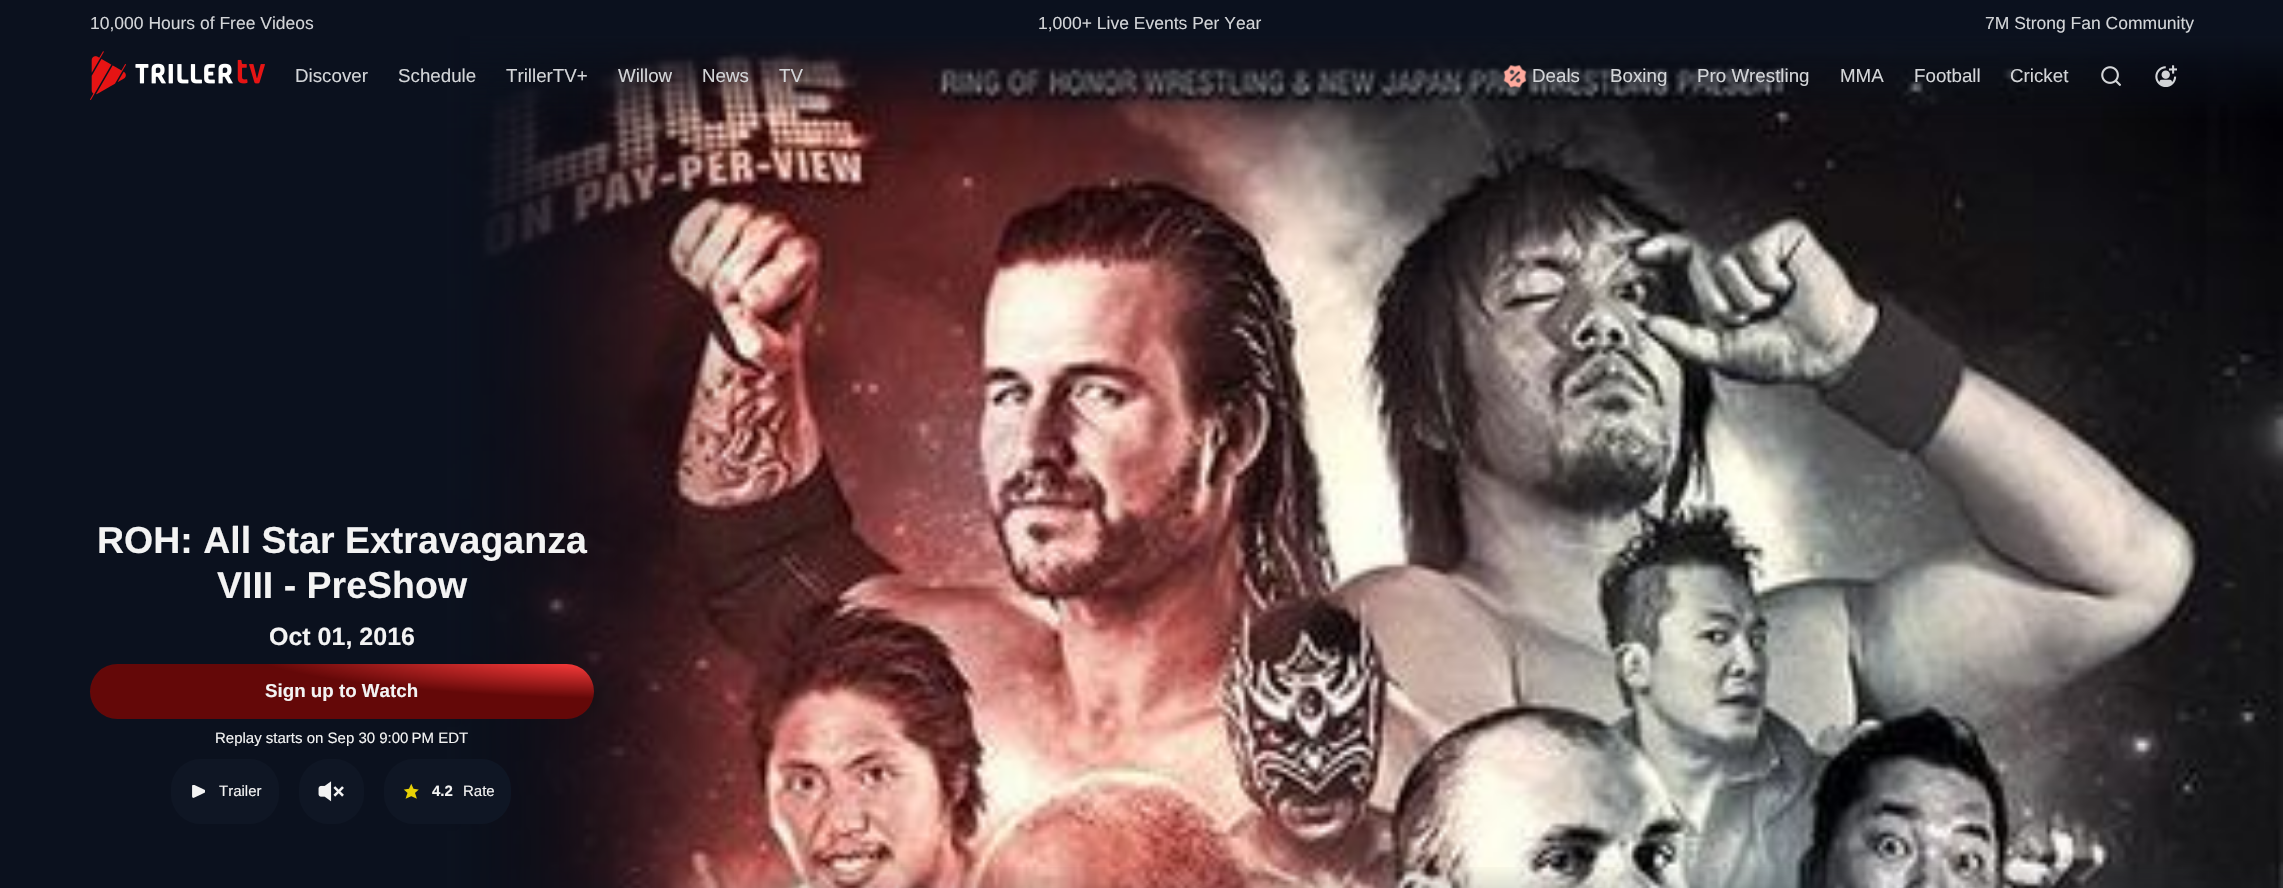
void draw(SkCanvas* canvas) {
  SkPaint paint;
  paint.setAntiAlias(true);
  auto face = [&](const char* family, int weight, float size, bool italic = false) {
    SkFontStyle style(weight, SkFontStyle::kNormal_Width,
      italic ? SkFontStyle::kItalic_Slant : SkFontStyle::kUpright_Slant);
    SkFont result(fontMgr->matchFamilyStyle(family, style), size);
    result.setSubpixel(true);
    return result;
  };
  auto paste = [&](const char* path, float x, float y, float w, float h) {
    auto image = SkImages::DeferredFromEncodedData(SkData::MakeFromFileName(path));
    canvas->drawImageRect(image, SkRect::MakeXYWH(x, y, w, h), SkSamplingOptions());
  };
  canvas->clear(0xff0b111e);
  paste("img/8.png", 447, 36, 1836, 852);
  {
    const SkColor colors[] = {0x000b111e, 0xff0b111e};
    const float stops[] = {0.8f, 1};
    const SkPoint ends[] = {{1365, 35}, {1365, 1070}};
    paint.setShader(SkGradientShader::MakeLinear(ends, colors, stops, 2, SkTileMode::kClamp));
    paint.setAlpha(255);
  }
  canvas->drawRect(SkRect::MakeXYWH(448, 867, 1835, 21), paint);
  {
    const SkColor colors[] = {0xff0b111e, 0x000b111e};
    const float stops[] = {0, 0.16f};
    const SkPoint ends[] = {{446, 553}, {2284, 552}};
    paint.setShader(SkGradientShader::MakeLinear(ends, colors, stops, 2, SkTileMode::kClamp));
    paint.setAlpha(255);
  }
  canvas->drawRect(SkRect::MakeXYWH(447, 36, 287, 852), paint);
  {
    const SkColor colors[] = {0xff0b111e, 0x000b111e};
    const float stops[] = {0, 1};
    const SkPoint ends[] = {{1142, 35}, {1142, 121}};
    paint.setShader(SkGradientShader::MakeLinear(ends, colors, stops, 2, SkTileMode::kClamp));
    paint.setAlpha(255);
  }
  canvas->drawRect(SkRect::MakeXYWH(470, 36, 1813, 83), paint);
  paste("img/1.png", 90, 51, 175, 49);
  paste("img/2.png", 1503, 65, 24, 23);
  paste("img/3.png", 2101, 66, 20, 20);
  paste("img/4.png", 2155, 65, 22, 22);
  {
    const SkColor colors[] = {0xffffa99d, 0xfff93a3a, 0xff640808};
    const float stops[] = {0.14f, 0.35f, 0.97f};
    SkMatrix m = SkMatrix::Translate(683, 649).preScale(452, 52);
    paint.setShader(SkGradientShader::MakeRadial({0, 0}, 1, colors, stops, 3, SkTileMode::kClamp, 0, &m));
    paint.setAlpha(255);
  }
  canvas->drawRoundRect(SkRect::MakeXYWH(90, 664, 504, 55), 27.5f, 27.5f, paint);
  paint.setShader(nullptr);
  paint.setColor(0xff0f1624);
  canvas->drawRoundRect(SkRect::MakeXYWH(171, 759, 108, 65), 30, 30, paint);
  paste("img/5.png", 192, 785, 13, 13);
  canvas->drawRoundRect(SkRect::MakeXYWH(299, 759, 65, 65), 30, 30, paint);
  paste("img/6.png", 318, 781, 26, 21);
  canvas->drawRoundRect(SkRect::MakeXYWH(384, 759, 127, 65), 30, 30, paint);
  paste("img/7.png", 403, 783, 16, 16);
  auto f0 = face("Liberation Sans", 400, 17.5f);
  paint.setColor(0xffd3d5d8);
  {
    const struct { const char* s; float x, y; } items[] = {
      {"10,000 Hours of Free Videos", 90, 29},
      {"1,000+ Live Events Per Year", 1038, 29},
      {"7M Strong Fan Community", 1985, 29},
    };
    for (auto [s, x, y] : items) {
      canvas->drawString(s, x, y, f0, paint);
    }
  }
  auto f1 = face("Liberation Sans", 400, 18.75f);
  {
    const struct { const char* s; float x, y; } items[] = {
      {"Discover", 295, 82},
      {"Schedule", 398, 82},
      {"TrillerTV+", 506, 82},
      {"Willow", 618, 82},
      {"News", 702, 82},
      {"TV", 779, 82},
      {"Deals", 1532, 82},
      {"Boxing", 1610, 82},
      {"Pro Wrestling", 1697, 82},
      {"MMA", 1840, 82},
      {"Football", 1914, 82},
      {"Cricket", 2010, 82},
    };
    for (auto [s, x, y] : items) {
      canvas->drawString(s, x, y, f1, paint);
    }
  }
  auto f2 = face("Liberation Sans", 700, 37.5f);
  paint.setColor(0xfff3f3f3);
  canvas->drawString("ROH: All Star Extravaganza", 97, 553, f2, paint);
  canvas->drawString("VIII - PreShow", 217, 598, f2, paint);
  auto f3 = face("Liberation Sans", 700, 25);
  canvas->drawString("Oct 01, 2016", 269, 645, f3, paint);
  auto f4 = face("Liberation Sans", 700, 18.75f);
  canvas->drawString("Sign up to Watch", 265, 697, f4, paint);
  auto f5 = face("Liberation Sans", 400, 15);
  canvas->drawString("Replay starts on Sep 30 9:00 PM EDT", 215, 743, f5, paint);
  canvas->drawString("Trailer", 219, 796, f5, paint);
  auto f6 = face("Liberation Sans", 700, 15);
  canvas->drawString("4.2", 432, 796, f6, paint);
  canvas->drawString("Rate", 463, 796, f5, paint);
}
